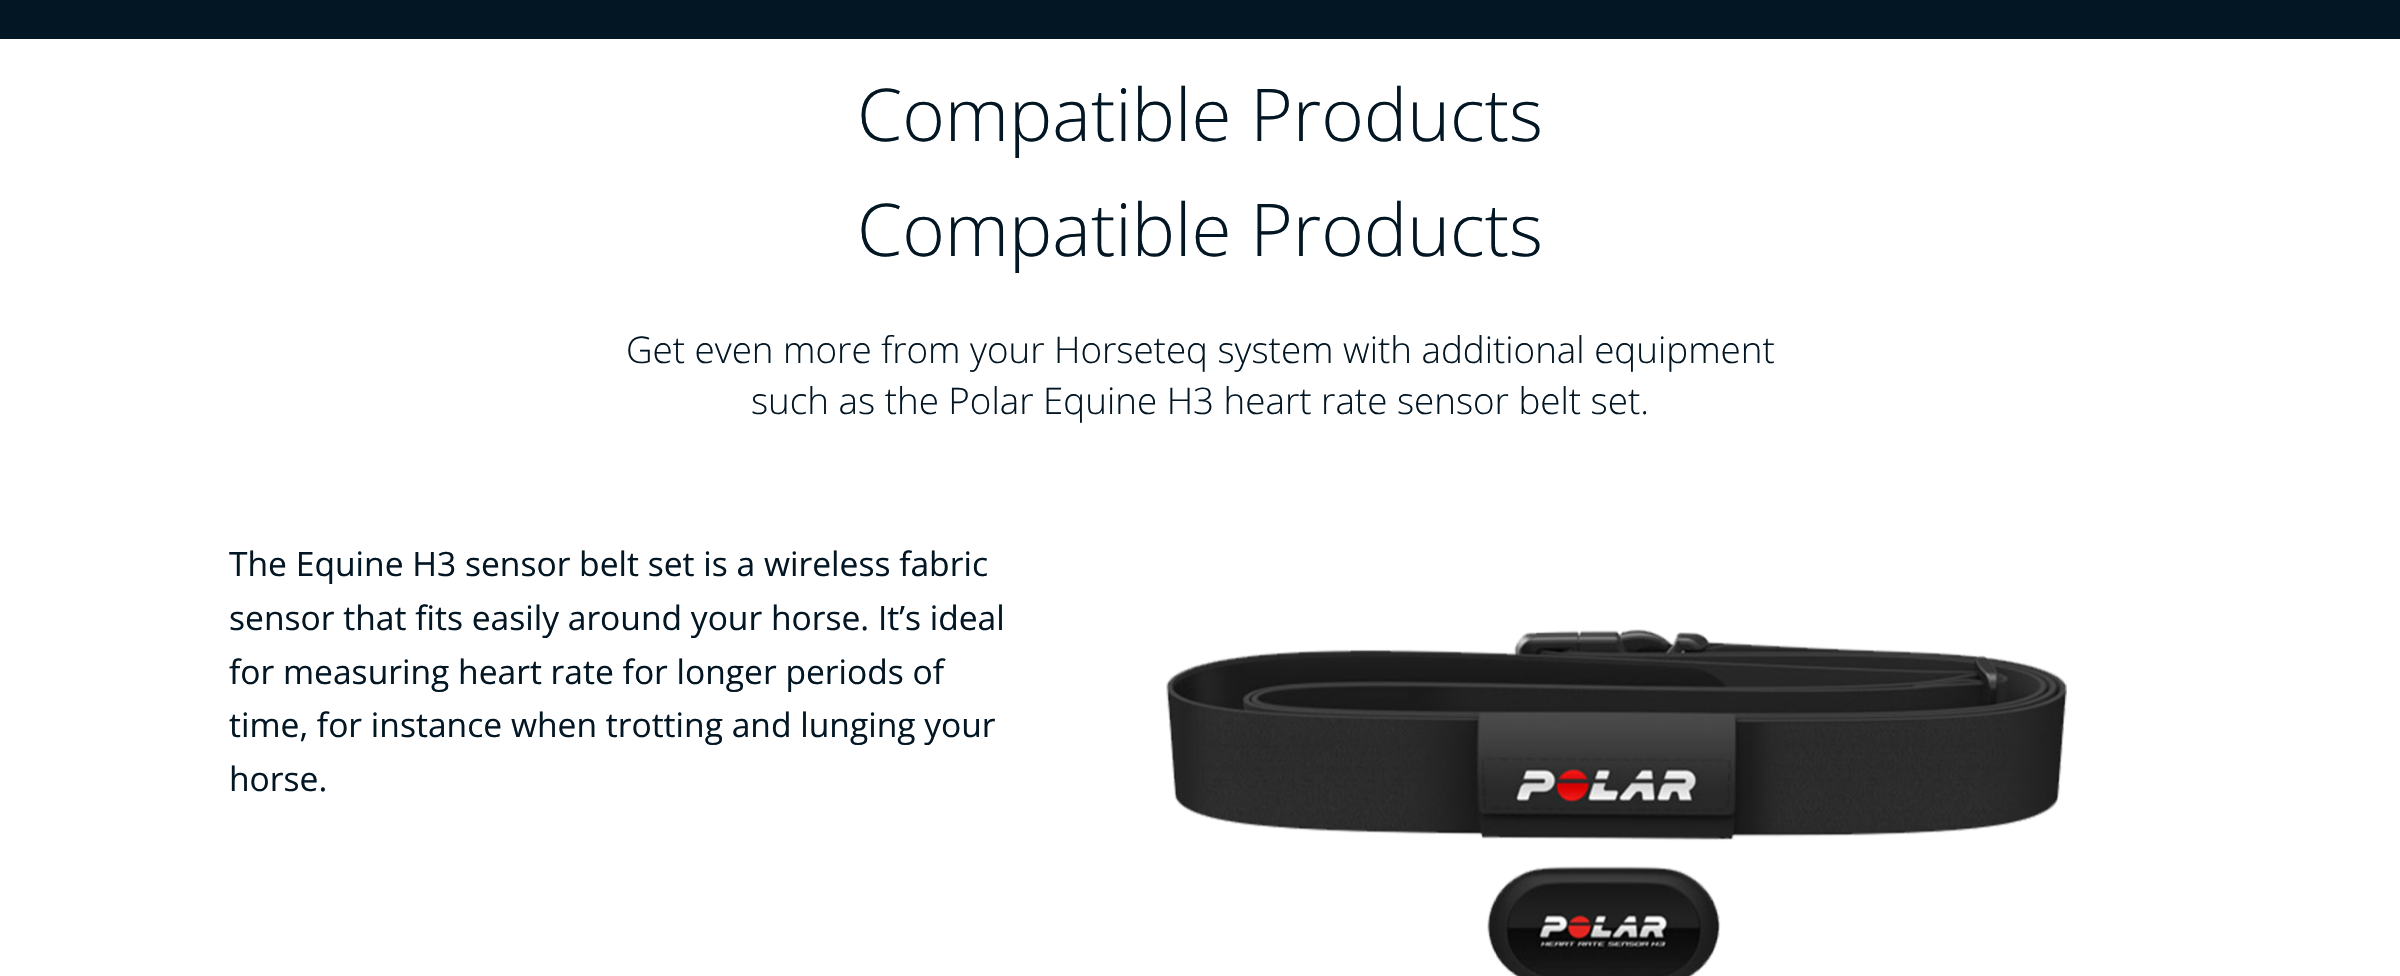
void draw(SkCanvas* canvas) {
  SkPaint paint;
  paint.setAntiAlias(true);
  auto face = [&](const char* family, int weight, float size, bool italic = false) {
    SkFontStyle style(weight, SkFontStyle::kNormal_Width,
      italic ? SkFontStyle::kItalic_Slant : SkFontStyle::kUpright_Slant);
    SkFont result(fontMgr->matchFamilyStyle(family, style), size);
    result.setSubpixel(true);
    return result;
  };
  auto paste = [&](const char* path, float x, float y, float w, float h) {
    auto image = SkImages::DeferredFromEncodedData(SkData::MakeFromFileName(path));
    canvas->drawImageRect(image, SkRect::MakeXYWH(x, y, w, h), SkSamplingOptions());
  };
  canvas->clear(0xff031624);
  paint.setColor(0xffffffff);
  canvas->drawRect(SkRect::MakeXYWH(0, 39, 2400, 937), paint);
  paste("img/1.png", 1166, 629, 901, 347);
  auto f0 = face("Open Sans", 300, 72.75f);
  paint.setColor(0xff031624);
  canvas->drawString("Compatible Products", 857, 141, f0, paint);
  canvas->drawString("Compatible Products", 857, 256, f0, paint);
  auto f1 = face("Open Sans", 300, 36.75f);
  canvas->drawString("Get even more from your Horseteq system with additional equipment", 626, 363, f1, paint);
  canvas->drawString("such as the Polar Equine H3 heart rate sensor belt set.", 751, 414, f1, paint);
  auto f2 = face("Open Sans", 400, 33.6f);
  {
    const struct { const char* s; float x, y; } items[] = {
      {"The Equine H3 sensor belt set is a wireless fabric", 229, 576},
      {"sensor that fits easily around your horse. It’s ideal", 229, 630},
      {"for measuring heart rate for longer periods of", 229, 684},
      {"time, for instance when trotting and lunging your", 229, 737},
      {"horse.", 229, 791},
    };
    for (auto [s, x, y] : items) {
      canvas->drawString(s, x, y, f2, paint);
    }
  }
}
